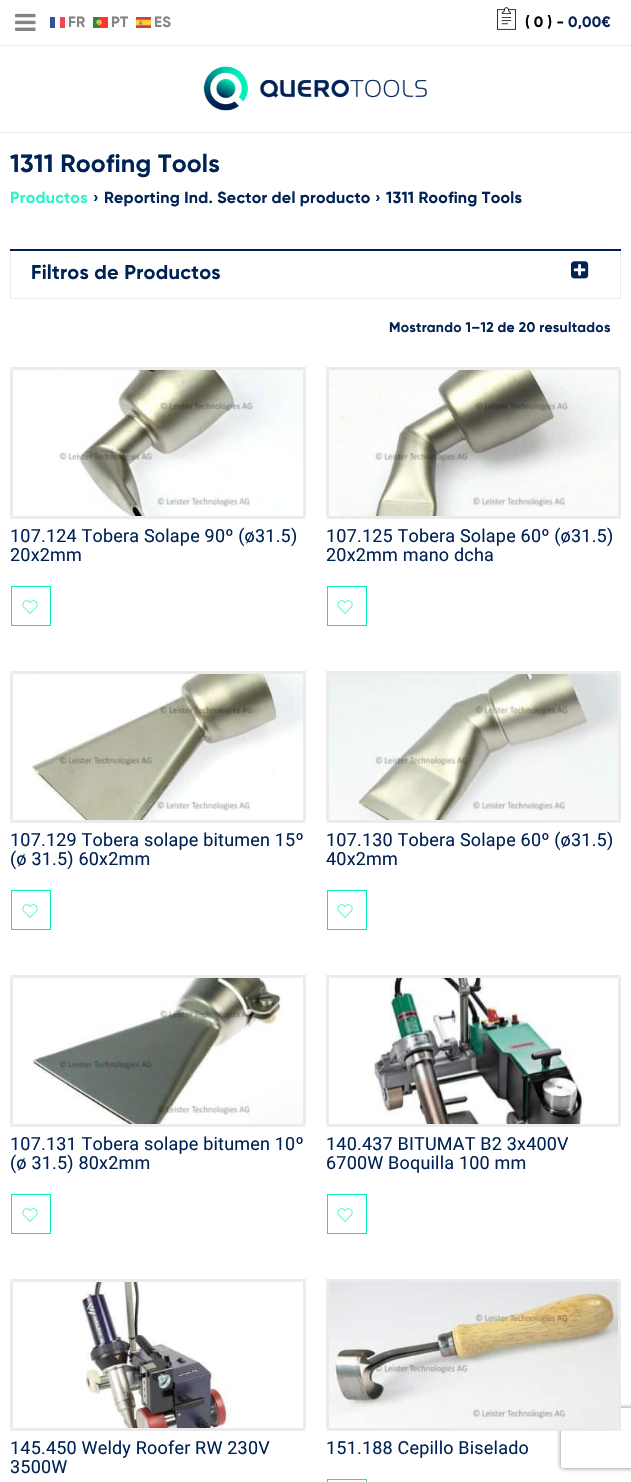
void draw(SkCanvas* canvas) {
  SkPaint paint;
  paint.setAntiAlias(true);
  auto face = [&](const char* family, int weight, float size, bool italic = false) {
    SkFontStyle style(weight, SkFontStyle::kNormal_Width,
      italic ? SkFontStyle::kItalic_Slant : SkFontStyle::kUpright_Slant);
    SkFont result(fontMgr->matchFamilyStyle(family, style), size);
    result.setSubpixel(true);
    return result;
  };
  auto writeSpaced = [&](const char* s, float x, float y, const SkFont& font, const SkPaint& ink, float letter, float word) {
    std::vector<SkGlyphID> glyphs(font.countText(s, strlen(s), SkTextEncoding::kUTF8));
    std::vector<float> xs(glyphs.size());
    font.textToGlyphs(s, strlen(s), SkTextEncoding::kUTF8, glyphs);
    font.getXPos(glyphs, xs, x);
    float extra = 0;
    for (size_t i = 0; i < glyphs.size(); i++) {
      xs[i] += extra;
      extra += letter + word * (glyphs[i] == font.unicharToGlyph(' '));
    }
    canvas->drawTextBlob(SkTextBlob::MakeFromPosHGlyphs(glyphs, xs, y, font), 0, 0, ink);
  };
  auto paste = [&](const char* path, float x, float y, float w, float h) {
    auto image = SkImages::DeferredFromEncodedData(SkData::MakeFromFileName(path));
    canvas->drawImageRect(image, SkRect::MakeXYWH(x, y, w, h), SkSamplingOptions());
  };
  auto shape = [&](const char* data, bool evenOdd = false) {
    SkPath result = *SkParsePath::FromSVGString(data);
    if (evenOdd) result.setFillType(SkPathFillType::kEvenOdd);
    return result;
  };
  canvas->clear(0xffffffff);
  paint.setColor(0xffebebeb);
  canvas->drawRect(SkRect::MakeXYWH(0, 45, 631, 1), paint);
  paste("img/1.png", 15, 13, 21, 18);
  paint.setColor(0xff335199);
  canvas->drawRect(SkRect::MakeXYWH(50, 17, 5, 11), paint);
  paint.setColor(0xfff54659);
  canvas->drawRect(SkRect::MakeXYWH(60, 17, 5, 11), paint);
  paste("img/2.png", 93, 17, 15, 11);
  paste("img/3.png", 136, 17, 15, 11);
  paste("img/4.png", 497, 7, 19, 23);
  paint.setColor(0xffebebeb);
  canvas->drawRect(SkRect::MakeXYWH(0, 132, 631, 1), paint);
  paste("img/5.png", 203, 66, 224, 45);
  paint.setStroke(true);
  paint.setStrokeWidth(1);
  canvas->drawRect(SkRect::MakeXYWH(10.5f, 249.5f, 610, 49), paint);
  paint.setStroke(false);
  paint.setColor(0xff002255);
  canvas->drawRect(SkRect::MakeXYWH(10, 249, 611, 2), paint);
  paste("img/6.png", 571, 261, 18, 18);
  paint.setStroke(true);
  paint.setColor(0xffebebeb);
  canvas->drawRect(SkRect::MakeXYWH(10.5f, 367.5f, 295, 151), paint);
  paint.setStrokeWidth(2);
  canvas->drawRoundRect(SkRect::MakeXYWH(12, 369, 292, 148), 2, 2, paint);
  paste("img/7.png", 56, 370, 247, 146);
  paint.setStrokeWidth(1);
  paint.setColor(0xff00efb8);
  canvas->drawRect(SkRect::MakeXYWH(11.5f, 586.5f, 39, 39), paint);
  paste("img/8.png", 22, 600, 16, 14);
  paint.setColor(0xffebebeb);
  canvas->drawRect(SkRect::MakeXYWH(326.5f, 367.5f, 294, 151), paint);
  paint.setStrokeWidth(2);
  canvas->drawRoundRect(SkRect::MakeXYWH(328, 369, 291, 148), 2, 2, paint);
  paste("img/9.png", 329, 370, 289, 146);
  paint.setStrokeWidth(1);
  paint.setColor(0xff00efb8);
  canvas->drawRect(SkRect::MakeXYWH(327.5f, 586.5f, 39, 39), paint);
  paste("img/8.png", 337, 600, 16, 14);
  paint.setColor(0xffebebeb);
  canvas->drawRect(SkRect::MakeXYWH(10.5f, 671.5f, 295, 151), paint);
  paint.setStrokeWidth(2);
  canvas->drawRoundRect(SkRect::MakeXYWH(12, 673, 292, 148), 2, 2, paint);
  paste("img/10.png", 30, 674, 273, 146);
  paint.setStrokeWidth(1);
  paint.setColor(0xff00efb8);
  canvas->drawRect(SkRect::MakeXYWH(11.5f, 890.5f, 39, 39), paint);
  paste("img/8.png", 22, 904, 16, 14);
  paint.setColor(0xffebebeb);
  canvas->drawRect(SkRect::MakeXYWH(326.5f, 671.5f, 294, 151), paint);
  paint.setStrokeWidth(2);
  canvas->drawRoundRect(SkRect::MakeXYWH(328, 673, 291, 148), 2, 2, paint);
  paste("img/11.png", 329, 674, 289, 146);
  paint.setStrokeWidth(1);
  paint.setColor(0xff00efb8);
  canvas->drawRect(SkRect::MakeXYWH(327.5f, 890.5f, 39, 39), paint);
  paste("img/8.png", 337, 904, 16, 14);
  paint.setColor(0xffebebeb);
  canvas->drawRect(SkRect::MakeXYWH(10.5f, 975.5f, 295, 151), paint);
  paint.setStrokeWidth(2);
  canvas->drawRoundRect(SkRect::MakeXYWH(12, 977, 292, 148), 2, 2, paint);
  paste("img/12.png", 31, 978, 272, 146);
  paint.setStrokeWidth(1);
  paint.setColor(0xff00efb8);
  canvas->drawRect(SkRect::MakeXYWH(11.5f, 1194.5f, 39, 39), paint);
  paste("img/8.png", 22, 1208, 16, 14);
  paint.setColor(0xffebebeb);
  canvas->drawRect(SkRect::MakeXYWH(326.5f, 975.5f, 294, 151), paint);
  paint.setStrokeWidth(2);
  canvas->drawRoundRect(SkRect::MakeXYWH(328, 977, 291, 148), 2, 2, paint);
  paste("img/13.png", 372, 978, 212, 146);
  paint.setStrokeWidth(1);
  paint.setColor(0xff00efb8);
  canvas->drawRect(SkRect::MakeXYWH(327.5f, 1194.5f, 39, 39), paint);
  paste("img/8.png", 337, 1208, 16, 14);
  paint.setColor(0xffebebeb);
  canvas->drawRect(SkRect::MakeXYWH(10.5f, 1279.5f, 295, 151), paint);
  paint.setStrokeWidth(2);
  canvas->drawRoundRect(SkRect::MakeXYWH(12, 1281, 292, 148), 2, 2, paint);
  paste("img/14.png", 80, 1282, 153, 146);
  canvas->save();
  canvas->clipPath(shape("M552 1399H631V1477H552ZM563 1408H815C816 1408 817 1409 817 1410V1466C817 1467 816 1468 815 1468H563C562 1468 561 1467 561 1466V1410C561 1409 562 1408 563 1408Z", true), true);
  paint.setStroke(false);
  paint.setColor(0xff808080);
  paint.setMaskFilter(SkMaskFilter::MakeBlur(kNormal_SkBlurStyle, 2.5f));
  canvas->drawRoundRect(SkRect::MakeXYWH(561, 1408, 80, 60), 2, 2, paint);
  paint.setMaskFilter(nullptr);
  canvas->restore();
  paint.setStroke(true);
  paint.setStrokeWidth(1);
  paint.setColor(0xffebebeb);
  canvas->drawRect(SkRect::MakeXYWH(326.5f, 1279.5f, 294, 151), paint);
  paint.setStrokeWidth(2);
  canvas->drawRoundRect(SkRect::MakeXYWH(328, 1281, 291, 148), 2, 2, paint);
  paste("img/15.png", 329, 1282, 289, 146);
  paint.setStrokeWidth(1);
  paint.setColor(0xff00efb8);
  canvas->drawRect(SkRect::MakeXYWH(327.5f, 1479.5f, 39, 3), paint);
  auto f0 = face("Gilroy", 700, 15);
  paint.setStroke(false);
  paint.setColor(0xff848484);
  {
    const struct { const char* s; float x, y; } items[] = {
      {"FR", 68, 27},
      {"PT", 111, 27},
      {"ES", 154, 27},
    };
    for (auto [s, x, y] : items) {
      writeSpaced(s, x, y, f0, paint, 0.25f, 0);
    }
  }
  paint.setColor(0xff000000);
  writeSpaced("( 0 ) -", 525, 27, f0, paint, 0.25f, 0);
  paint.setColor(0xff002255);
  writeSpaced("0,00€", 568, 27, f0, paint, 0.25f, 0);
  auto f1 = face("Gilroy", 700, 25);
  writeSpaced("1311 Roofing Tools", 10, 172, f1, paint, 0.25f, 0);
  auto f2 = face("Gilroy", 700, 16);
  paint.setColor(0xff33f2c6);
  writeSpaced("Productos", 10, 203, f2, paint, 0.25f, 0);
  paint.setColor(0xff002255);
  {
    const struct { const char* s; float x, y; } items[] = {
      {"›", 93, 203},
      {"Reporting Ind. Sector del producto", 104, 203},
      {"›", 375, 203},
      {"1311 Roofing Tools", 386, 203},
    };
    for (auto [s, x, y] : items) {
      writeSpaced(s, x, y, f2, paint, 0.25f, 0);
    }
  }
  auto f3 = face("Gilroy", 700, 20);
  writeSpaced("Filtros de Productos", 31, 279, f3, paint, 0.25f, 0);
  auto f4 = face("Gilroy", 700, 14);
  writeSpaced("Mostrando 1–12 de 20 resultados", 389, 332, f4, paint, 0.25f, 0);
  auto f5 = face("Roboto", 400, 18);
  {
    const struct { const char* s; float x, y; } items[] = {
      {"107.124 Tobera Solape 90º (ø31.5)", 10, 542},
      {"20x2mm", 10, 561},
      {"107.125 Tobera Solape 60º (ø31.5)", 326, 542},
      {"20x2mm mano dcha", 326, 561},
      {"107.129 Tobera solape bitumen 15º", 10, 846},
      {"(ø 31.5) 60x2mm", 10, 865},
      {"107.130 Tobera Solape 60º (ø31.5)", 326, 846},
      {"40x2mm", 326, 865},
      {"107.131 Tobera solape bitumen 10º", 10, 1150},
      {"(ø 31.5) 80x2mm", 10, 1169},
      {"140.437 BITUMAT B2 3x400V", 326, 1150},
      {"6700W Boquilla 100 mm", 326, 1169},
      {"145.450 Weldy Roofer RW 230V", 10, 1454},
      {"3500W", 10, 1473},
      {"151.188 Cepillo Biselado", 326, 1454},
    };
    for (auto [s, x, y] : items) {
      writeSpaced(s, x, y, f5, paint, 0.2f, 0);
    }
  }
}
